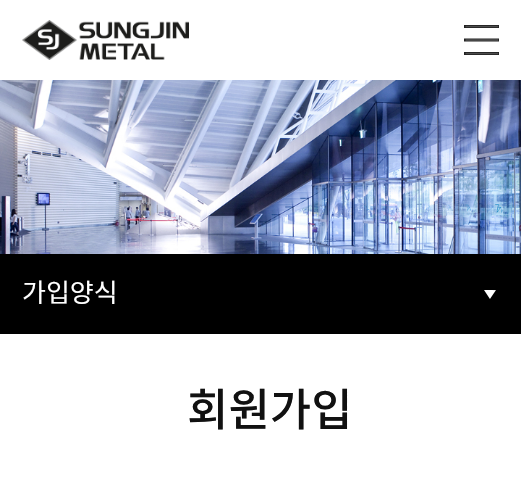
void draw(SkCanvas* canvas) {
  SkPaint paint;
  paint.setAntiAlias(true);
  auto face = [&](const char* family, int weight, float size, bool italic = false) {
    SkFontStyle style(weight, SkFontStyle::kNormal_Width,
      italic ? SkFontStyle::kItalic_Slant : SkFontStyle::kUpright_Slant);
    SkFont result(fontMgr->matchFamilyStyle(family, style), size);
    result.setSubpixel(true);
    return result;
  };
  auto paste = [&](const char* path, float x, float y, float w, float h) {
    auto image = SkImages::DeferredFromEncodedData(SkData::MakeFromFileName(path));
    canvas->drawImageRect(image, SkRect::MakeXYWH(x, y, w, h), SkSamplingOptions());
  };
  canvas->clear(0xffffffff);
  paste("img/1.png", 22, 20, 167, 40);
  paste("img/2.png", 464, 25, 35, 30);
  paste("img/3.png", 0, 80, 521, 174);
  paint.setColor(0xff000000);
  canvas->drawRect(SkRect::MakeXYWH(0, 254, 521, 80), paint);
  paste("img/4.png", 484, 290, 12, 9);
  auto f0 = face("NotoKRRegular", 400, 26);
  paint.setColor(0xffffffff);
  canvas->drawString("가입양식", 22, 302, f0, paint);
  auto f1 = face("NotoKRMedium", 500, 45);
  paint.setColor(0xff111111);
  canvas->drawString("회원가입", 187, 426, f1, paint);
}
